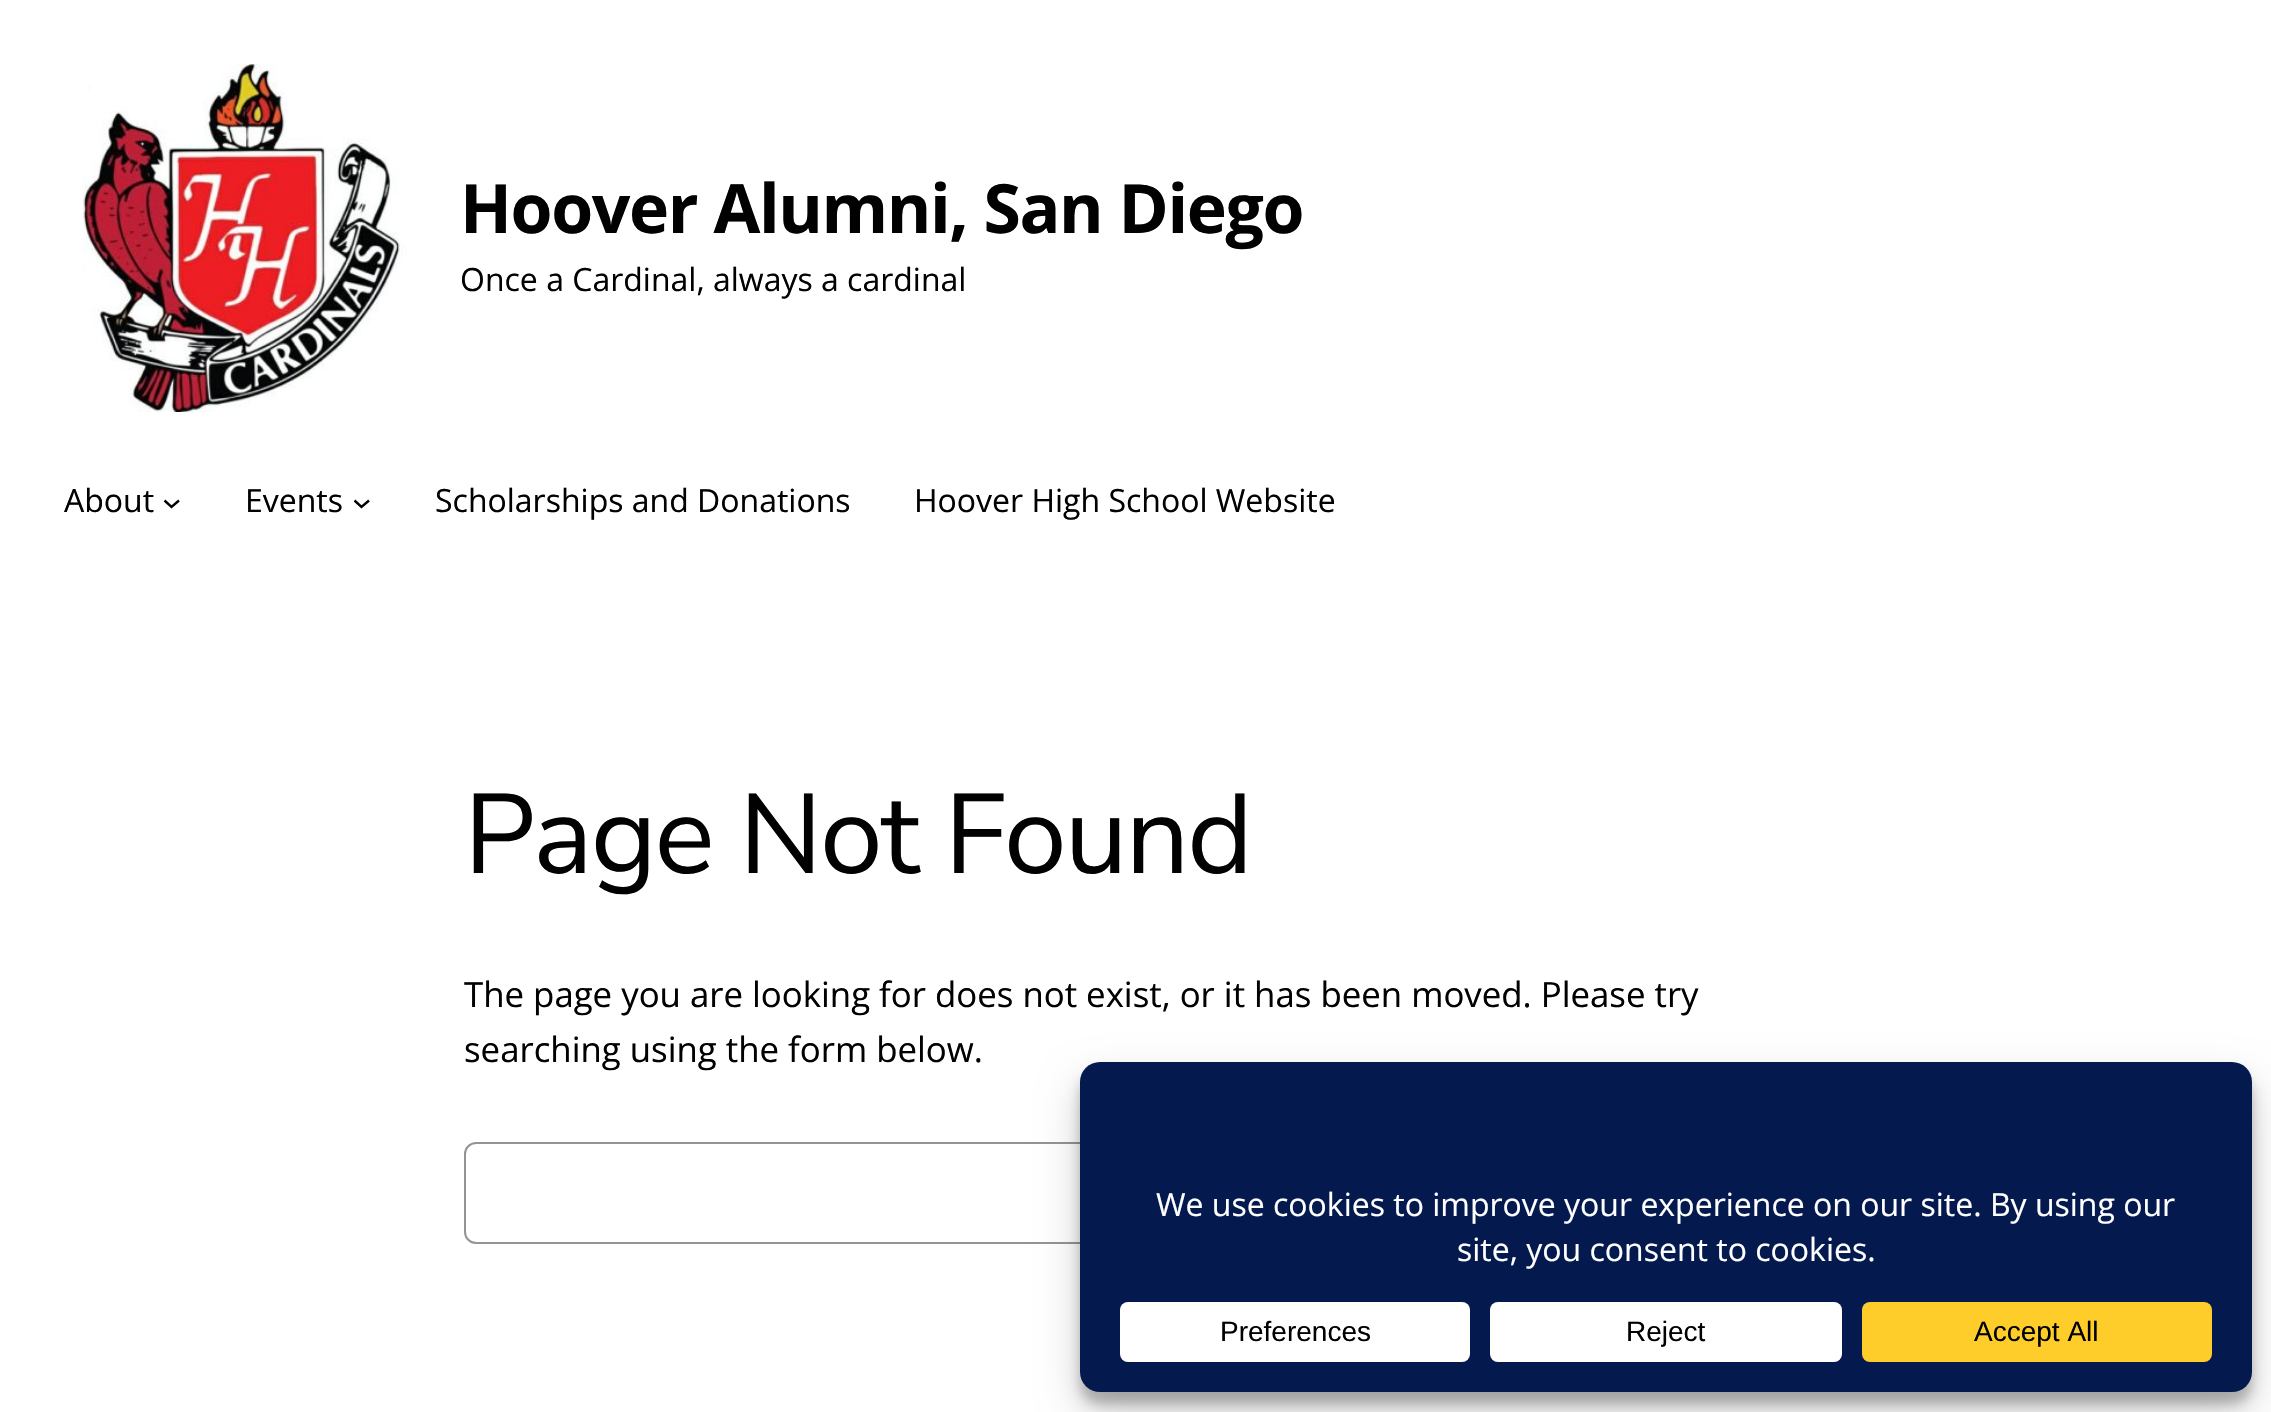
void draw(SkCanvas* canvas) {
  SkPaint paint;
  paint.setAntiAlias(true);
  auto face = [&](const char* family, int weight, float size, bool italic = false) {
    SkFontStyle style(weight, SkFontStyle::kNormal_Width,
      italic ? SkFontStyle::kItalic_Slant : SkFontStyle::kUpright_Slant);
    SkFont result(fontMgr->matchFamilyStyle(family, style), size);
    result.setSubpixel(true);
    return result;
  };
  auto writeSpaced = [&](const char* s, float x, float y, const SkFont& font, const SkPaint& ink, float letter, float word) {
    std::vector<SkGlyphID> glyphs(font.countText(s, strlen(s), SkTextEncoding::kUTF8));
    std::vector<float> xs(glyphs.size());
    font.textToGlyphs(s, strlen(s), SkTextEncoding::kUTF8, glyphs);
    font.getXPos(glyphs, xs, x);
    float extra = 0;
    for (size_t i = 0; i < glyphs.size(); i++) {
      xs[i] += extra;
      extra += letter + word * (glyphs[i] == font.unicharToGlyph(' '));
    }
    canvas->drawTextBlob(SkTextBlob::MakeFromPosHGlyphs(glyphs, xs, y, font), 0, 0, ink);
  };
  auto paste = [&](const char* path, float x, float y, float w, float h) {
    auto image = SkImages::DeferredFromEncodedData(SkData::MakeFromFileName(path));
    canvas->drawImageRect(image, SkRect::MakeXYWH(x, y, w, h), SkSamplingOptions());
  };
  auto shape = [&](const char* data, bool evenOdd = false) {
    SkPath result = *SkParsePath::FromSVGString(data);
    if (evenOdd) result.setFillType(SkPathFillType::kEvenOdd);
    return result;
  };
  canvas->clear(0xffffffff);
  paste("img/1.png", 82, 64, 324, 348);
  paint.setStroke(true);
  paint.setStrokeWidth(2.4f);
  paint.setColor(0xff010101);
  canvas->drawPath(shape("M164.5 500.5L171.5 507L179 500.5"), paint);
  canvas->drawPath(shape("M354.5 500.5L361.5 507L369 500.5"), paint);
  paint.setStrokeWidth(2);
  paint.setColor(0xff949494);
  canvas->drawRoundRect(SkRect::MakeXYWH(465, 1143, 1114, 100), 11, 11, paint);
  paint.setStroke(false);
  paint.setColor(0x3b000000);
  paint.setMaskFilter(SkMaskFilter::MakeBlur(kNormal_SkBlurStyle, 6));
  canvas->drawRoundRect(SkRect::MakeXYWH(1080, 1074, 1172, 330), 20, 20, paint);
  paint.setMaskFilter(nullptr);
  paint.setColor(0x30000000);
  paint.setMaskFilter(SkMaskFilter::MakeBlur(kNormal_SkBlurStyle, 20));
  canvas->drawRoundRect(SkRect::MakeXYWH(1080, 1082, 1172, 330), 20, 20, paint);
  paint.setMaskFilter(nullptr);
  paint.setColor(0xff04194e);
  canvas->drawRoundRect(SkRect::MakeXYWH(1080, 1062, 1172, 330), 20, 20, paint);
  paint.setColor(0xffffffff);
  canvas->drawRoundRect(SkRect::MakeXYWH(1120, 1302, 350, 60), 8, 8, paint);
  canvas->drawRoundRect(SkRect::MakeXYWH(1490, 1302, 352, 60), 8, 8, paint);
  paint.setColor(0xffffcd2a);
  canvas->drawRoundRect(SkRect::MakeXYWH(1862, 1302, 350, 60), 8, 8, paint);
  auto f0 = face("Open Sans", 700, 67.9f);
  paint.setColor(0xff010101);
  writeSpaced("Hoover Alumni, San Diego", 460, 233, f0, paint, -1.4f, 0);
  auto f1 = face("Open Sans", 400, 32);
  {
    const struct { const char* s; float x, y; } items[] = {
      {"Once a Cardinal, always a cardinal", 460, 291},
      {"About", 64, 512},
      {"Events", 245, 512},
      {"Scholarships and Donations", 435, 512},
      {"Hoover High School Website", 914, 512},
    };
    for (auto [s, x, y] : items) {
      canvas->drawString(s, x, y, f1, paint);
    }
  }
  auto f2 = face("Nunito Sans", 400, 112.75f);
  writeSpaced("Page Not Found", 464, 873, f2, paint, -2.25f, 0);
  auto f3 = face("Open Sans", 400, 34.8f);
  canvas->drawString("The page you are looking for does not exist, or it has been moved. Please try", 464, 1007, f3, paint);
  canvas->drawString("searching using the form below.", 464, 1062, f3, paint);
  paint.setColor(0xffffffff);
  canvas->drawString("We use cookies to improve your experience on our site. By using our", 1156, 1216, f1, paint);
  canvas->drawString("site, you consent to cookies.", 1457, 1261, f1, paint);
  auto f4 = face("Liberation Sans", 400, 28);
  paint.setColor(0xff010101);
  {
    const struct { const char* s; float x, y; } items[] = {
      {"Preferences", 1220, 1341},
      {"Reject", 1626, 1341},
      {"Accept All", 1974, 1341},
    };
    for (auto [s, x, y] : items) {
      canvas->drawString(s, x, y, f4, paint);
    }
  }
}
